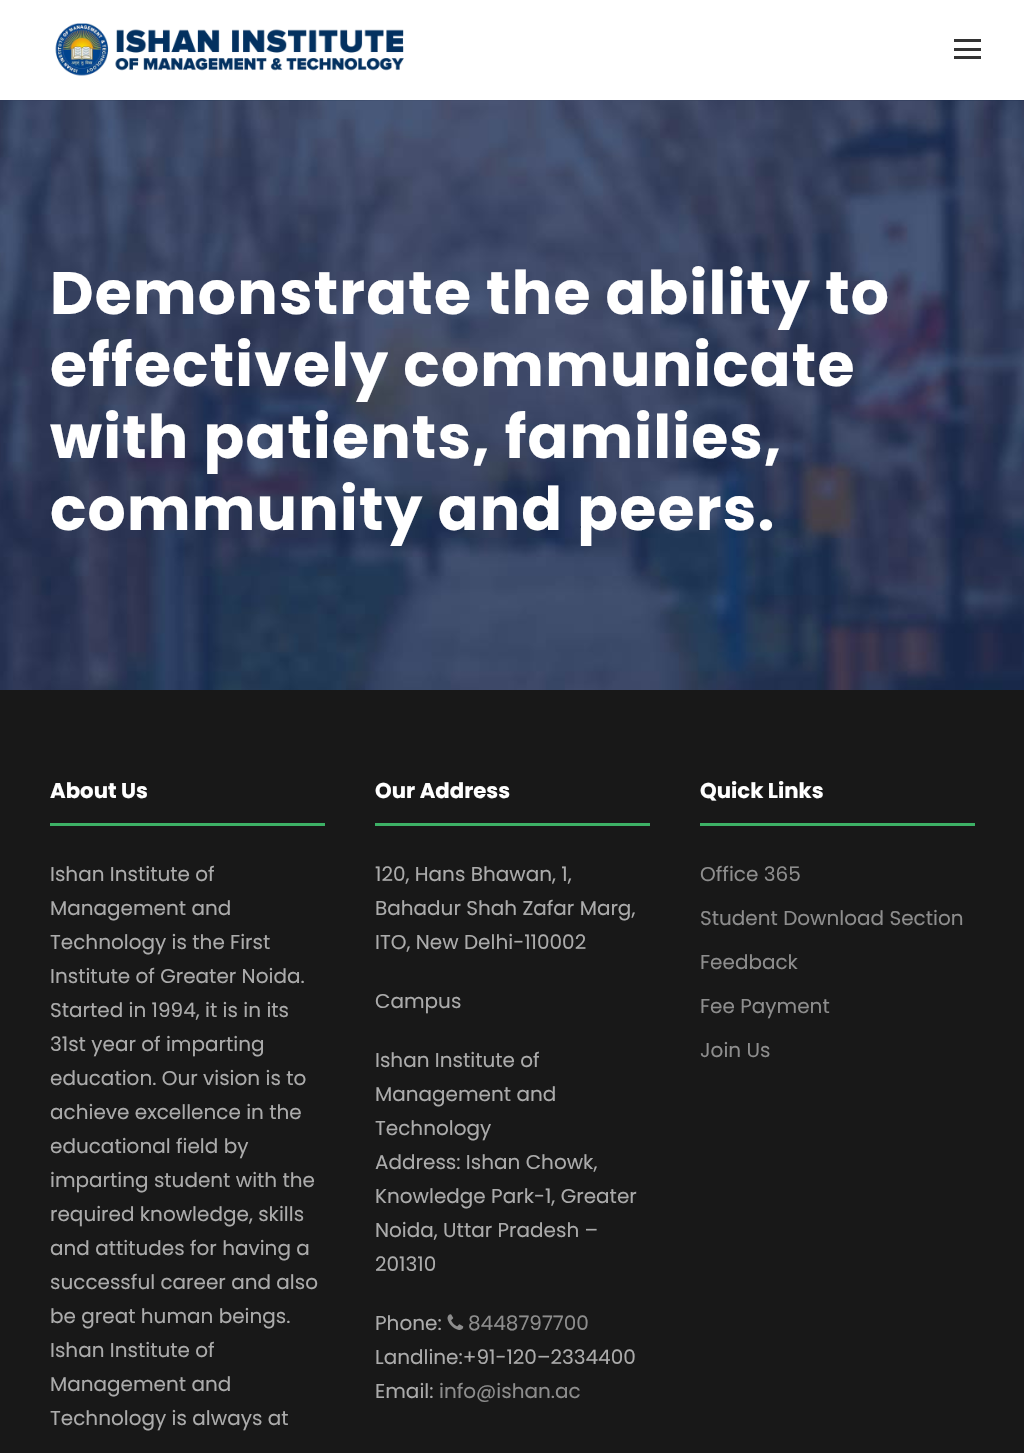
void draw(SkCanvas* canvas) {
  SkPaint paint;
  paint.setAntiAlias(true);
  auto face = [&](const char* family, int weight, float size, bool italic = false) {
    SkFontStyle style(weight, SkFontStyle::kNormal_Width,
      italic ? SkFontStyle::kItalic_Slant : SkFontStyle::kUpright_Slant);
    SkFont result(fontMgr->matchFamilyStyle(family, style), size);
    result.setSubpixel(true);
    return result;
  };
  auto writeSpaced = [&](const char* s, float x, float y, const SkFont& font, const SkPaint& ink, float letter, float word) {
    std::vector<SkGlyphID> glyphs(font.countText(s, strlen(s), SkTextEncoding::kUTF8));
    std::vector<float> xs(glyphs.size());
    font.textToGlyphs(s, strlen(s), SkTextEncoding::kUTF8, glyphs);
    font.getXPos(glyphs, xs, x);
    float extra = 0;
    for (size_t i = 0; i < glyphs.size(); i++) {
      xs[i] += extra;
      extra += letter + word * (glyphs[i] == font.unicharToGlyph(' '));
    }
    canvas->drawTextBlob(SkTextBlob::MakeFromPosHGlyphs(glyphs, xs, y, font), 0, 0, ink);
  };
  auto paste = [&](const char* path, float x, float y, float w, float h) {
    auto image = SkImages::DeferredFromEncodedData(SkData::MakeFromFileName(path));
    canvas->drawImageRect(image, SkRect::MakeXYWH(x, y, w, h), SkSamplingOptions());
  };
  canvas->clear(0xffffffff);
  paste("img/1.png", 55, 23, 349, 53);
  {
    const struct { float x, y, w, h; SkColor color; } items[] = {
      {954, 39, 27, 3, 0xff333333},
      {954, 48, 27, 3, 0xff333333},
      {954, 56, 27, 3, 0xff333333},
    };
    for (auto [x, y, w, h, color] : items) {
      paint.setColor(color);
      canvas->drawRect(SkRect::MakeXYWH(x, y, w, h), paint);
    }
  }
  paste("img/2.png", 0, 100, 1024, 590);
  {
    const struct { float x, y, w, h; SkColor color; } items[] = {
      {0, 690, 1024, 763, 0xff181818},
      {50, 823, 275, 3, 0xff3db166},
      {375, 823, 275, 3, 0xff3db166},
    };
    for (auto [x, y, w, h, color] : items) {
      paint.setColor(color);
      canvas->drawRect(SkRect::MakeXYWH(x, y, w, h), paint);
    }
  }
  paste("img/3.png", 447, 1314, 17, 16);
  canvas->drawRect(SkRect::MakeXYWH(700, 823, 275, 3), paint);
  auto f0 = face("Poppins", 700, 60);
  paint.setColor(0xffffffff);
  {
    const struct { const char* s; float x, y; } items[] = {
      {"Demonstrate the ability to", 50, 314},
      {"effectively communicate", 50, 386},
      {"with patients, families,", 50, 458},
      {"community and peers.", 50, 530},
    };
    for (auto [s, x, y] : items) {
      writeSpaced(s, x, y, f0, paint, 1.25f, 0);
    }
  }
  auto f1 = face("Poppins", 700, 21.25f);
  canvas->drawString("About Us", 50, 798, f1, paint);
  auto f2 = face("Poppins", 400, 20);
  paint.setColor(0xffababab);
  {
    const struct { const char* s; float x, y; } items[] = {
      {"Ishan Institute of", 50, 881},
      {"Management and", 50, 915},
      {"Technology is the First", 50, 949},
      {"Institute of Greater Noida.", 50, 983},
      {"Started in 1994, it is in its", 50, 1017},
      {"31st year of imparting", 50, 1051},
      {"education. Our vision is to", 50, 1085},
      {"achieve excellence in the", 50, 1119},
      {"educational field by", 50, 1153},
      {"imparting student with the", 50, 1187},
      {"required knowledge, skills", 50, 1221},
      {"and attitudes for having a", 50, 1255},
      {"successful career and also", 50, 1289},
      {"be great human beings.", 50, 1323},
      {"Ishan Institute of", 50, 1357},
      {"Management and", 50, 1391},
      {"Technology is always at", 50, 1425},
    };
    for (auto [s, x, y] : items) {
      canvas->drawString(s, x, y, f2, paint);
    }
  }
  paint.setColor(0xffffffff);
  canvas->drawString("Our Address", 375, 798, f1, paint);
  paint.setColor(0xffababab);
  {
    const struct { const char* s; float x, y; } items[] = {
      {"120, Hans Bhawan, 1,", 375, 881},
      {"Bahadur Shah Zafar Marg,", 375, 915},
      {"ITO, New Delhi-110002", 375, 949},
      {"Campus", 375, 1008},
      {"Ishan Institute of", 375, 1067},
      {"Management and", 375, 1101},
      {"Technology", 375, 1135},
      {"Address: Ishan Chowk,", 375, 1169},
      {"Knowledge Park-1, Greater", 375, 1203},
      {"Noida, Uttar Pradesh –", 375, 1237},
      {"201310", 375, 1271},
      {"Phone:", 375, 1330},
    };
    for (auto [s, x, y] : items) {
      canvas->drawString(s, x, y, f2, paint);
    }
  }
  paint.setColor(0xff8d8d8d);
  canvas->drawString("8448797700", 468, 1330, f2, paint);
  paint.setColor(0xffababab);
  canvas->drawString("Landline:+91-120–2334400", 375, 1364, f2, paint);
  canvas->drawString("Email:", 375, 1398, f2, paint);
  paint.setColor(0xff8d8d8d);
  canvas->drawString("info@ishan.ac", 439, 1398, f2, paint);
  paint.setColor(0xffffffff);
  canvas->drawString("Quick Links", 700, 798, f1, paint);
  paint.setColor(0xff8d8d8d);
  {
    const struct { const char* s; float x, y; } items[] = {
      {"Office 365", 700, 881},
      {"Student Download Section", 700, 925},
      {"Feedback", 700, 969},
      {"Fee Payment", 700, 1013},
      {"Join Us", 700, 1057},
    };
    for (auto [s, x, y] : items) {
      canvas->drawString(s, x, y, f2, paint);
    }
  }
}
